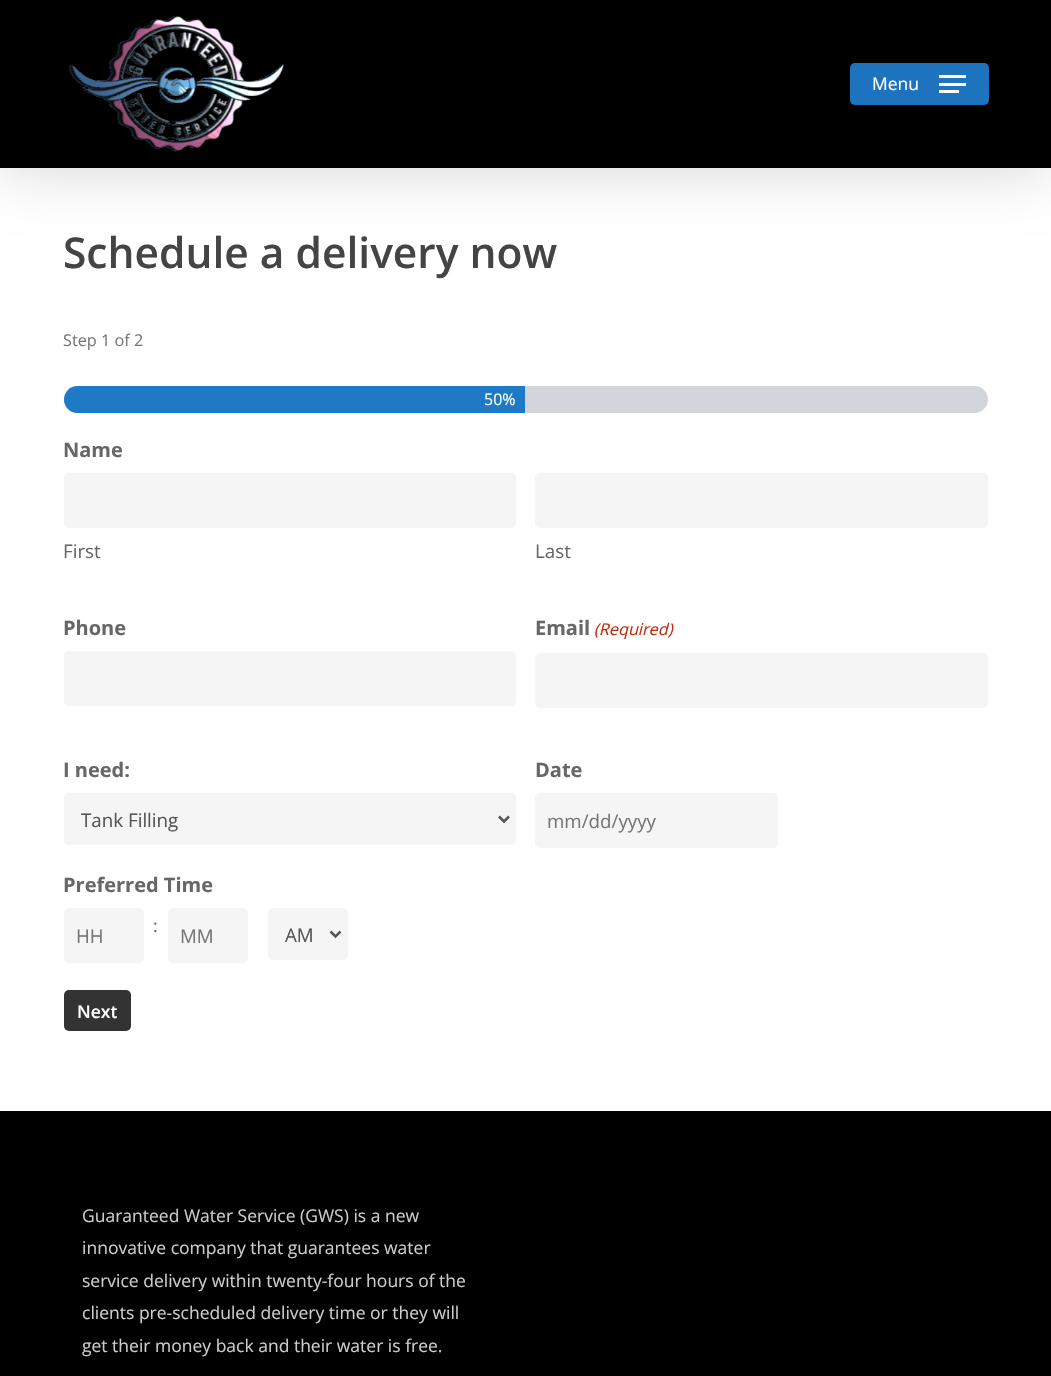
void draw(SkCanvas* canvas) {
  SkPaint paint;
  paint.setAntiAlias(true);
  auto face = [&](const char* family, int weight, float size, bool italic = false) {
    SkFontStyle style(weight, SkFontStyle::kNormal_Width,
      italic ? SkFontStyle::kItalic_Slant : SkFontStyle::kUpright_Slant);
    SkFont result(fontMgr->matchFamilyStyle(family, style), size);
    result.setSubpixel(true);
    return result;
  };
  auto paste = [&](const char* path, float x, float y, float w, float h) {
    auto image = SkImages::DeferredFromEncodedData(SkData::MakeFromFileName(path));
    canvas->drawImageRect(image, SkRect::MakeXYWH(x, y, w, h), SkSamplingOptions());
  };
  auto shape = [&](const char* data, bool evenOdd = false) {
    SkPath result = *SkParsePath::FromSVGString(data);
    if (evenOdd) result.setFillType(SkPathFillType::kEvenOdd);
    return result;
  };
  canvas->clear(0xffffffff);
  paint.setColor(0x26000000);
  paint.setMaskFilter(SkMaskFilter::MakeBlur(kNormal_SkBlurStyle, 28));
  canvas->drawRect(SkRect::MakeXYWH(0, 4, 1051, 167), paint);
  paint.setMaskFilter(nullptr);
  paint.setColor(0xff000000);
  canvas->drawRect(SkRect::MakeXYWH(0, 0, 1051, 168), paint);
  paste("img/1.png", 68, 16, 216, 136);
  paint.setColor(0xff1e73be);
  canvas->drawRoundRect(SkRect::MakeXYWH(850, 63, 139, 42), 5, 5, paint);
  {
    const struct { float x, y, w, h; SkColor color; } items[] = {
      {939, 75, 27, 3, 0xffffffff},
      {939, 90, 20, 3, 0xffffffff},
      {939, 83, 27, 3, 0xffffffff},
    };
    for (auto [x, y, w, h, color] : items) {
      paint.setColor(color);
      canvas->drawRect(SkRect::MakeXYWH(x, y, w, h), paint);
    }
  }
  paint.setColor(0xffd2d6dc);
  canvas->drawRoundRect(SkRect::MakeXYWH(64, 386, 924, 27), 13.5f, 13.5f, paint);
  paint.setColor(0xff1e7ac4);
  canvas->drawPath(shape("M77.5 386H525V413H77.5C70 413 64 407 64 399.5C64 392 70 386 77.5 386Z"), paint);
  paint.setColor(0xfff5f5f5);
  canvas->drawRoundRect(SkRect::MakeXYWH(64, 473, 452, 55), 5, 5, paint);
  canvas->drawRoundRect(SkRect::MakeXYWH(535, 473, 453, 55), 5, 5, paint);
  canvas->drawRoundRect(SkRect::MakeXYWH(64, 651, 452, 55), 5, 5, paint);
  canvas->drawRoundRect(SkRect::MakeXYWH(535, 653, 453, 55), 5, 5, paint);
  canvas->drawRoundRect(SkRect::MakeXYWH(64, 793, 452, 52), 5, 5, paint);
  paint.setStroke(true);
  paint.setStrokeWidth(2.5f);
  paint.setColor(0xff555555);
  canvas->drawPath(shape("M499 816.5L504 821.5L509 816.5"), paint);
  paint.setStroke(false);
  paint.setColor(0xfff5f5f5);
  canvas->drawRoundRect(SkRect::MakeXYWH(535, 793, 243, 55), 5, 5, paint);
  canvas->drawRoundRect(SkRect::MakeXYWH(64, 908, 80, 55), 5, 5, paint);
  canvas->drawRoundRect(SkRect::MakeXYWH(168, 908, 80, 55), 5, 5, paint);
  canvas->drawRoundRect(SkRect::MakeXYWH(268, 908, 80, 52), 5, 5, paint);
  paint.setStroke(true);
  paint.setColor(0xff555555);
  canvas->drawPath(shape("M330.5 931.5L335.5 936.5L340.5 931.5"), paint);
  paint.setStroke(false);
  paint.setColor(0xff333333);
  canvas->drawRoundRect(SkRect::MakeXYWH(64, 990, 67, 41), 5, 5, paint);
  paint.setColor(0xff000000);
  canvas->drawRect(SkRect::MakeXYWH(0, 1111, 1051, 265), paint);
  auto f0 = face("Open Sans", 400, 17.5f);
  paint.setColor(0xffffffff);
  canvas->drawString("Menu", 872, 90, f0, paint);
  auto f1 = face("Open Sans", 600, 42.5f);
  paint.setColor(0xff444444);
  canvas->drawString("Schedule a delivery now", 63, 268, f1, paint);
  auto f2 = face("Open Sans", 400, 16.25f);
  paint.setColor(0xff767676);
  canvas->drawString("Step 1 of 2", 63, 346, f2, paint);
  auto f3 = face("Open Sans", 400, 16);
  paint.setColor(0xffffffff);
  canvas->drawString("50%", 484, 405, f3, paint);
  auto f4 = face("Open Sans", 700, 20);
  paint.setColor(0xff676767);
  canvas->drawString("Name", 63, 457, f4, paint);
  auto f5 = face("Open Sans", 400, 18.75f);
  canvas->drawString("First", 63, 558, f5, paint);
  canvas->drawString("Last", 535, 558, f5, paint);
  canvas->drawString("Phone", 63, 635, f4, paint);
  canvas->drawString("Email", 535, 635, f4, paint);
  auto f6 = face("Open Sans", 400, 16.25f, true);
  paint.setColor(0xffc02b0a);
  canvas->drawString("(Required)", 594, 635, f6, paint);
  paint.setColor(0xff676767);
  canvas->drawString("I need:", 63, 777, f4, paint);
  paint.setColor(0xff555555);
  canvas->drawString("Tank Filling", 81, 827, f5, paint);
  paint.setColor(0xff676767);
  canvas->drawString("Date", 535, 777, f4, paint);
  paint.setColor(0xff767676);
  canvas->drawString("mm/dd/yyyy", 547, 828, f5, paint);
  paint.setColor(0xff676767);
  canvas->drawString("Preferred Time", 63, 892, f4, paint);
  paint.setColor(0xff767676);
  canvas->drawString("HH", 76, 943, f5, paint);
  paint.setColor(0xff676767);
  canvas->drawString(":", 153, 932, f0, paint);
  paint.setColor(0xff767676);
  canvas->drawString("MM", 180, 943, f5, paint);
  paint.setColor(0xff555555);
  canvas->drawString("AM", 285, 942, f5, paint);
  auto f7 = face("Open Sans", 600, 17.5f);
  paint.setColor(0xffffffff);
  canvas->drawString("Next", 77, 1018, f7, paint);
  paint.setColor(0xffcccccc);
  {
    const struct { const char* s; float x, y; } items[] = {
      {"Guaranteed Water Service (GWS) is a new", 82, 1222},
      {"innovative company that guarantees water", 82, 1254},
      {"service delivery within twenty-four hours of the", 82, 1287},
      {"clients pre-scheduled delivery time or they will", 82, 1319},
      {"get their money back and their water is free.", 82, 1352},
    };
    for (auto [s, x, y] : items) {
      canvas->drawString(s, x, y, f0, paint);
    }
  }
}
